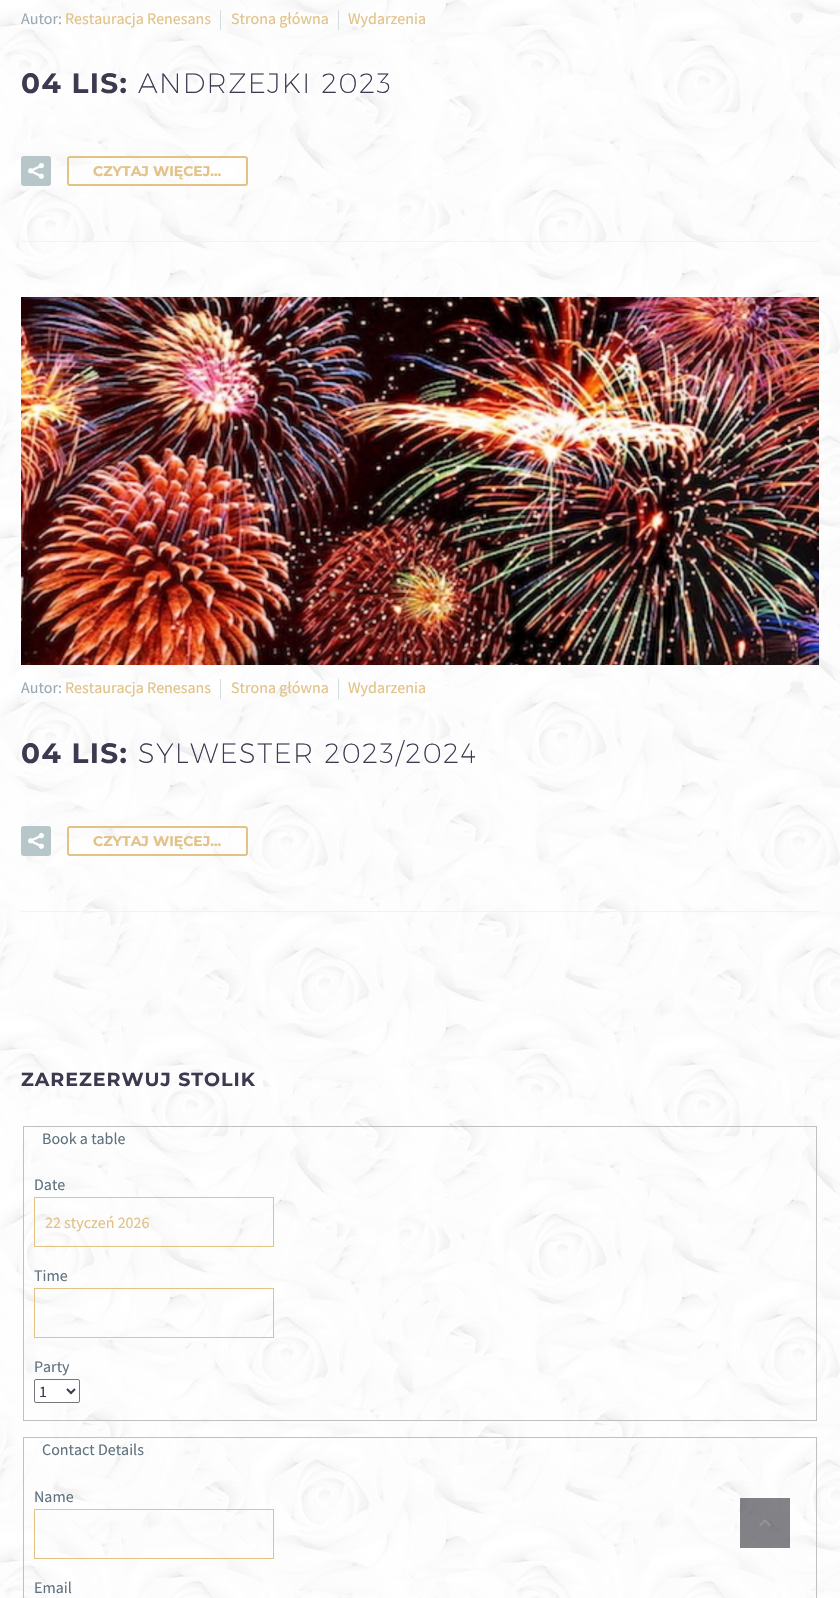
void draw(SkCanvas* canvas) {
  SkPaint paint;
  paint.setAntiAlias(true);
  auto face = [&](const char* family, int weight, float size, bool italic = false) {
    SkFontStyle style(weight, SkFontStyle::kNormal_Width,
      italic ? SkFontStyle::kItalic_Slant : SkFontStyle::kUpright_Slant);
    SkFont result(fontMgr->matchFamilyStyle(family, style), size);
    result.setSubpixel(true);
    return result;
  };
  auto writeSpaced = [&](const char* s, float x, float y, const SkFont& font, const SkPaint& ink, float letter, float word) {
    std::vector<SkGlyphID> glyphs(font.countText(s, strlen(s), SkTextEncoding::kUTF8));
    std::vector<float> xs(glyphs.size());
    font.textToGlyphs(s, strlen(s), SkTextEncoding::kUTF8, glyphs);
    font.getXPos(glyphs, xs, x);
    float extra = 0;
    for (size_t i = 0; i < glyphs.size(); i++) {
      xs[i] += extra;
      extra += letter + word * (glyphs[i] == font.unicharToGlyph(' '));
    }
    canvas->drawTextBlob(SkTextBlob::MakeFromPosHGlyphs(glyphs, xs, y, font), 0, 0, ink);
  };
  auto paste = [&](const char* path, float x, float y, float w, float h) {
    auto image = SkImages::DeferredFromEncodedData(SkData::MakeFromFileName(path));
    canvas->drawImageRect(image, SkRect::MakeXYWH(x, y, w, h), SkSamplingOptions());
  };
  auto shape = [&](const char* data, bool evenOdd = false) {
    SkPath result = *SkParsePath::FromSVGString(data);
    if (evenOdd) result.setFillType(SkPathFillType::kEvenOdd);
    return result;
  };
  canvas->clear(0xffffffff);
  paste("img/1.png", 0, 0, 840, 1598);
  {
    const struct { float x, y, w, h; SkColor color; } items[] = {
      {21, 241, 798, 1, 0xfff0f3f2},
      {220, 10, 1, 20, 0xffd4dee1},
      {338, 10, 1, 20, 0xffd4dee1},
    };
    for (auto [x, y, w, h, color] : items) {
      paint.setColor(color);
      canvas->drawRect(SkRect::MakeXYWH(x, y, w, h), paint);
    }
  }
  paste("img/2.png", 790, 12, 14, 12);
  paint.setColor(0xffb6c6c9);
  canvas->drawRoundRect(SkRect::MakeXYWH(21, 156, 30, 30), 3, 3, paint);
  paste("img/3.png", 28, 163, 16, 16);
  paint.setStroke(true);
  paint.setStrokeWidth(2);
  paint.setColor(0xffe2c285);
  canvas->drawRoundRect(SkRect::MakeXYWH(68, 157, 179, 28), 2, 2, paint);
  paint.setStroke(false);
  paint.setColor(0xfff0f3f2);
  canvas->drawRect(SkRect::MakeXYWH(21, 911, 798, 1), paint);
  paste("img/4.png", 21, 297, 798, 368);
  paint.setColor(0xffd4dee1);
  canvas->drawRect(SkRect::MakeXYWH(220, 679, 1, 20), paint);
  canvas->drawRect(SkRect::MakeXYWH(338, 679, 1, 20), paint);
  paste("img/5.png", 790, 681, 14, 12);
  paint.setColor(0xffb6c6c9);
  canvas->drawRoundRect(SkRect::MakeXYWH(21, 826, 30, 30), 3, 3, paint);
  paste("img/3.png", 28, 833, 16, 16);
  paint.setStroke(true);
  paint.setColor(0xffe2c285);
  canvas->drawRoundRect(SkRect::MakeXYWH(68, 827, 179, 28), 2, 2, paint);
  paint.setStroke(false);
  paint.setColor(0xfff0f3f2);
  canvas->drawPath(shape("M263 1078.5V1086.5H271Z"), paint);
  paint.setStroke(true);
  paint.setStrokeWidth(1);
  paint.setColor(0xffc0c0c0);
  canvas->drawRect(SkRect::MakeXYWH(23.5f, 1126.5f, 793, 294), paint);
  paint.setColor(0xffe2c285);
  canvas->drawRect(SkRect::MakeXYWH(34.5f, 1197.5f, 239, 49), paint);
  canvas->drawRect(SkRect::MakeXYWH(34.5f, 1288.5f, 239, 49), paint);
  paint.setStroke(false);
  paint.setColor(0xffffffff);
  canvas->drawRoundRect(SkRect::MakeXYWH(34.5f, 1379.5f, 45, 23), 1.5f, 1.5f, paint);
  paint.setStroke(true);
  paint.setColor(0xff767676);
  canvas->drawRoundRect(SkRect::MakeXYWH(34.5f, 1379.5f, 45, 23), 1.5f, 1.5f, paint);
  paint.setStrokeWidth(2);
  paint.setColor(0xff3c3950);
  canvas->drawPath(shape("M67 1389L71 1393L75 1389"), paint);
  paint.setStrokeWidth(1);
  paint.setColor(0xffc0c0c0);
  canvas->drawRect(SkRect::MakeXYWH(23.5f, 1437.5f, 793, 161), paint);
  paint.setColor(0xffe2c285);
  canvas->drawRect(SkRect::MakeXYWH(34.5f, 1509.5f, 239, 49), paint);
  paint.setStroke(false);
  paint.setColor(0x8006060f);
  canvas->drawRect(SkRect::MakeXYWH(740, 1498, 50, 50), paint);
  paste("img/6.png", 759, 1519, 12, 8);
  auto f0 = face("Source Sans Pro", 400, 16);
  paint.setColor(0xff99a9b5);
  canvas->drawString("Autor:", 21, 24, f0, paint);
  paint.setColor(0xffe2c285);
  {
    const struct { const char* s; float x, y; } items[] = {
      {"Restauracja Renesans", 65, 24},
      {"Strona główna", 231, 24},
      {"Wydarzenia", 348, 24},
    };
    for (auto [s, x, y] : items) {
      canvas->drawString(s, x, y, f0, paint);
    }
  }
  auto f1 = face("Montserrat", 700, 28);
  paint.setColor(0xff3c3950);
  writeSpaced("04 LIS:", 21, 93, f1, paint, 1.4f, 0);
  auto f2 = face("Montserrat", 200, 28);
  writeSpaced("ANDRZEJKI 2023", 138, 93, f2, paint, 1.4f, 0);
  auto f3 = face("Montserrat", 700, 14);
  paint.setColor(0xffe2c285);
  canvas->drawString("CZYTAJ WIĘCEJ...", 93, 176, f3, paint);
  paint.setColor(0xff99a9b5);
  canvas->drawString("Autor:", 21, 693, f0, paint);
  paint.setColor(0xffe2c285);
  {
    const struct { const char* s; float x, y; } items[] = {
      {"Restauracja Renesans", 65, 693},
      {"Strona główna", 231, 693},
      {"Wydarzenia", 348, 693},
    };
    for (auto [s, x, y] : items) {
      canvas->drawString(s, x, y, f0, paint);
    }
  }
  paint.setColor(0xff3c3950);
  writeSpaced("04 LIS:", 21, 763, f1, paint, 1.4f, 0);
  writeSpaced("SYLWESTER 2023/2024", 138, 763, f2, paint, 1.4f, 0);
  paint.setColor(0xffe2c285);
  canvas->drawString("CZYTAJ WIĘCEJ...", 93, 846, f3, paint);
  auto f4 = face("Montserrat", 700, 19);
  paint.setColor(0xff3c3950);
  writeSpaced("ZAREZERWUJ STOLIK", 21, 1086, f4, paint, 1, 0);
  paint.setColor(0xff5f727f);
  canvas->drawString("Book a table", 42, 1144, f0, paint);
  canvas->drawString("Date", 34, 1190, f0, paint);
  paint.setColor(0xffe2c285);
  canvas->drawString("22 styczeń 2026", 45, 1228, f0, paint);
  paint.setColor(0xff5f727f);
  canvas->drawString("Time", 34, 1281, f0, paint);
  canvas->drawString("Party", 34, 1372, f0, paint);
  paint.setColor(0xff3c3950);
  canvas->drawString("1", 39, 1397, f0, paint);
  paint.setColor(0xff5f727f);
  {
    const struct { const char* s; float x, y; } items[] = {
      {"Contact Details", 42, 1455},
      {"Name", 34, 1502},
      {"Email", 34, 1593},
    };
    for (auto [s, x, y] : items) {
      canvas->drawString(s, x, y, f0, paint);
    }
  }
}
